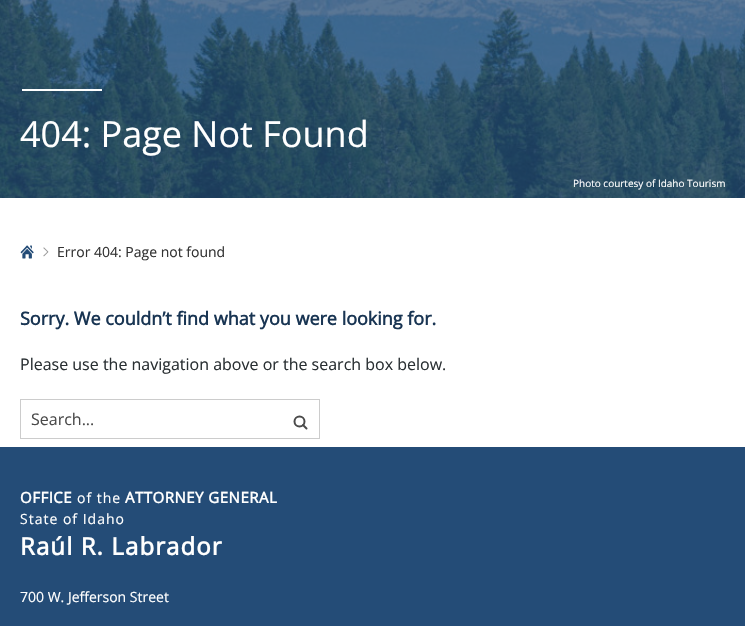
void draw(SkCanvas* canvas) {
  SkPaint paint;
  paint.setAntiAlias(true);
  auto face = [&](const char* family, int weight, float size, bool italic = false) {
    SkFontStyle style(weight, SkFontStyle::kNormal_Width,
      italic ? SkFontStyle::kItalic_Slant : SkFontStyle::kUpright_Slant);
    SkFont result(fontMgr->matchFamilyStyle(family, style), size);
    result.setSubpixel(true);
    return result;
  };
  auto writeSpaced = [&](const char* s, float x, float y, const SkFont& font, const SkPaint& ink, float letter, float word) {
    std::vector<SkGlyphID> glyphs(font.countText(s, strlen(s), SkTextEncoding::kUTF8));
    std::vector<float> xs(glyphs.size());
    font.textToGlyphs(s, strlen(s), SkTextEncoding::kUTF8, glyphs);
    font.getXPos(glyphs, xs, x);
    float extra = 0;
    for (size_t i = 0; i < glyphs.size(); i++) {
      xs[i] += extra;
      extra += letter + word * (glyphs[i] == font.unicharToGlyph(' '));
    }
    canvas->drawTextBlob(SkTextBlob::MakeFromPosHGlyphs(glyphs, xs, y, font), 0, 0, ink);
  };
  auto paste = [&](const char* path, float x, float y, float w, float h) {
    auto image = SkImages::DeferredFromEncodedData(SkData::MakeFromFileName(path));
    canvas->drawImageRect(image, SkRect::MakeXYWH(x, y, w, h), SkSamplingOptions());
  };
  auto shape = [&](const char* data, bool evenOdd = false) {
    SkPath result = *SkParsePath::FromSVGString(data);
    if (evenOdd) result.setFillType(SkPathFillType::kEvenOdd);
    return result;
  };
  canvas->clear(0xffffffff);
  paste("img/1.png", 0, 0, 745, 198);
  paint.setColor(0xffffffff);
  canvas->drawRect(SkRect::MakeXYWH(22, 89, 80, 2), paint);
  paste("img/2.png", 20, 245, 14, 14);
  paste("img/3.png", 43, 247, 6, 10);
  paint.setStroke(true);
  paint.setStrokeWidth(1);
  paint.setColor(0xffcccccc);
  canvas->drawRect(SkRect::MakeXYWH(20.5f, 399.5f, 299, 39), paint);
  paint.setStrokeWidth(2);
  paint.setColor(0xff4a4a4a);
  canvas->drawCircle(299.5f, 421.5f, 5, paint);
  paint.setStrokeCap(SkPaint::kRound_Cap);
  canvas->drawPath(shape("M303 425L306.5 428.5"), paint);
  paint.setStroke(false);
  paint.setColor(0xff244c77);
  canvas->drawRect(SkRect::MakeXYWH(0, 447, 745, 179), paint);
  auto f0 = face("Open Sans", 400, 36);
  paint.setColor(0xffffffff);
  canvas->drawString("404: Page Not Found", 20, 147, f0, paint);
  auto f1 = face("Open Sans", 400, 10);
  canvas->drawString("Photo courtesy of Idaho Tourism", 573, 187, f1, paint);
  auto f2 = face("Open Sans", 400, 14);
  paint.setColor(0xff333333);
  canvas->drawString("Error 404: Page not found", 57, 257, f2, paint);
  auto f3 = face("Open Sans", 700, 18);
  paint.setColor(0xff193553);
  canvas->drawString("Sorry. We couldn’t find what you were looking for.", 20, 325, f3, paint);
  auto f4 = face("Open Sans", 400, 16);
  paint.setColor(0xff2a3033);
  canvas->drawString("Please use the navigation above or the search box below.", 20, 370, f4, paint);
  paint.setColor(0xff4a4a4a);
  canvas->drawString("Search...", 31, 425, f4, paint);
  auto f5 = face("Open Sans", 700, 15);
  paint.setColor(0xffffffff);
  writeSpaced("OFFICE", 20, 503, f5, paint, 0.5f, 0);
  writeSpaced("of the", 77, 503, f2, paint, 1, 0);
  writeSpaced("ATTORNEY GENERAL", 125, 503, f5, paint, 0.5f, 0);
  writeSpaced("State of Idaho", 20, 524, f2, paint, 1, 0);
  auto f6 = face("Open Sans", 700, 24);
  writeSpaced("Raúl R. Labrador", 20, 555, f6, paint, 1.1f, 0);
  canvas->drawString("700 W. Jefferson Street", 20, 602, f2, paint);
}
